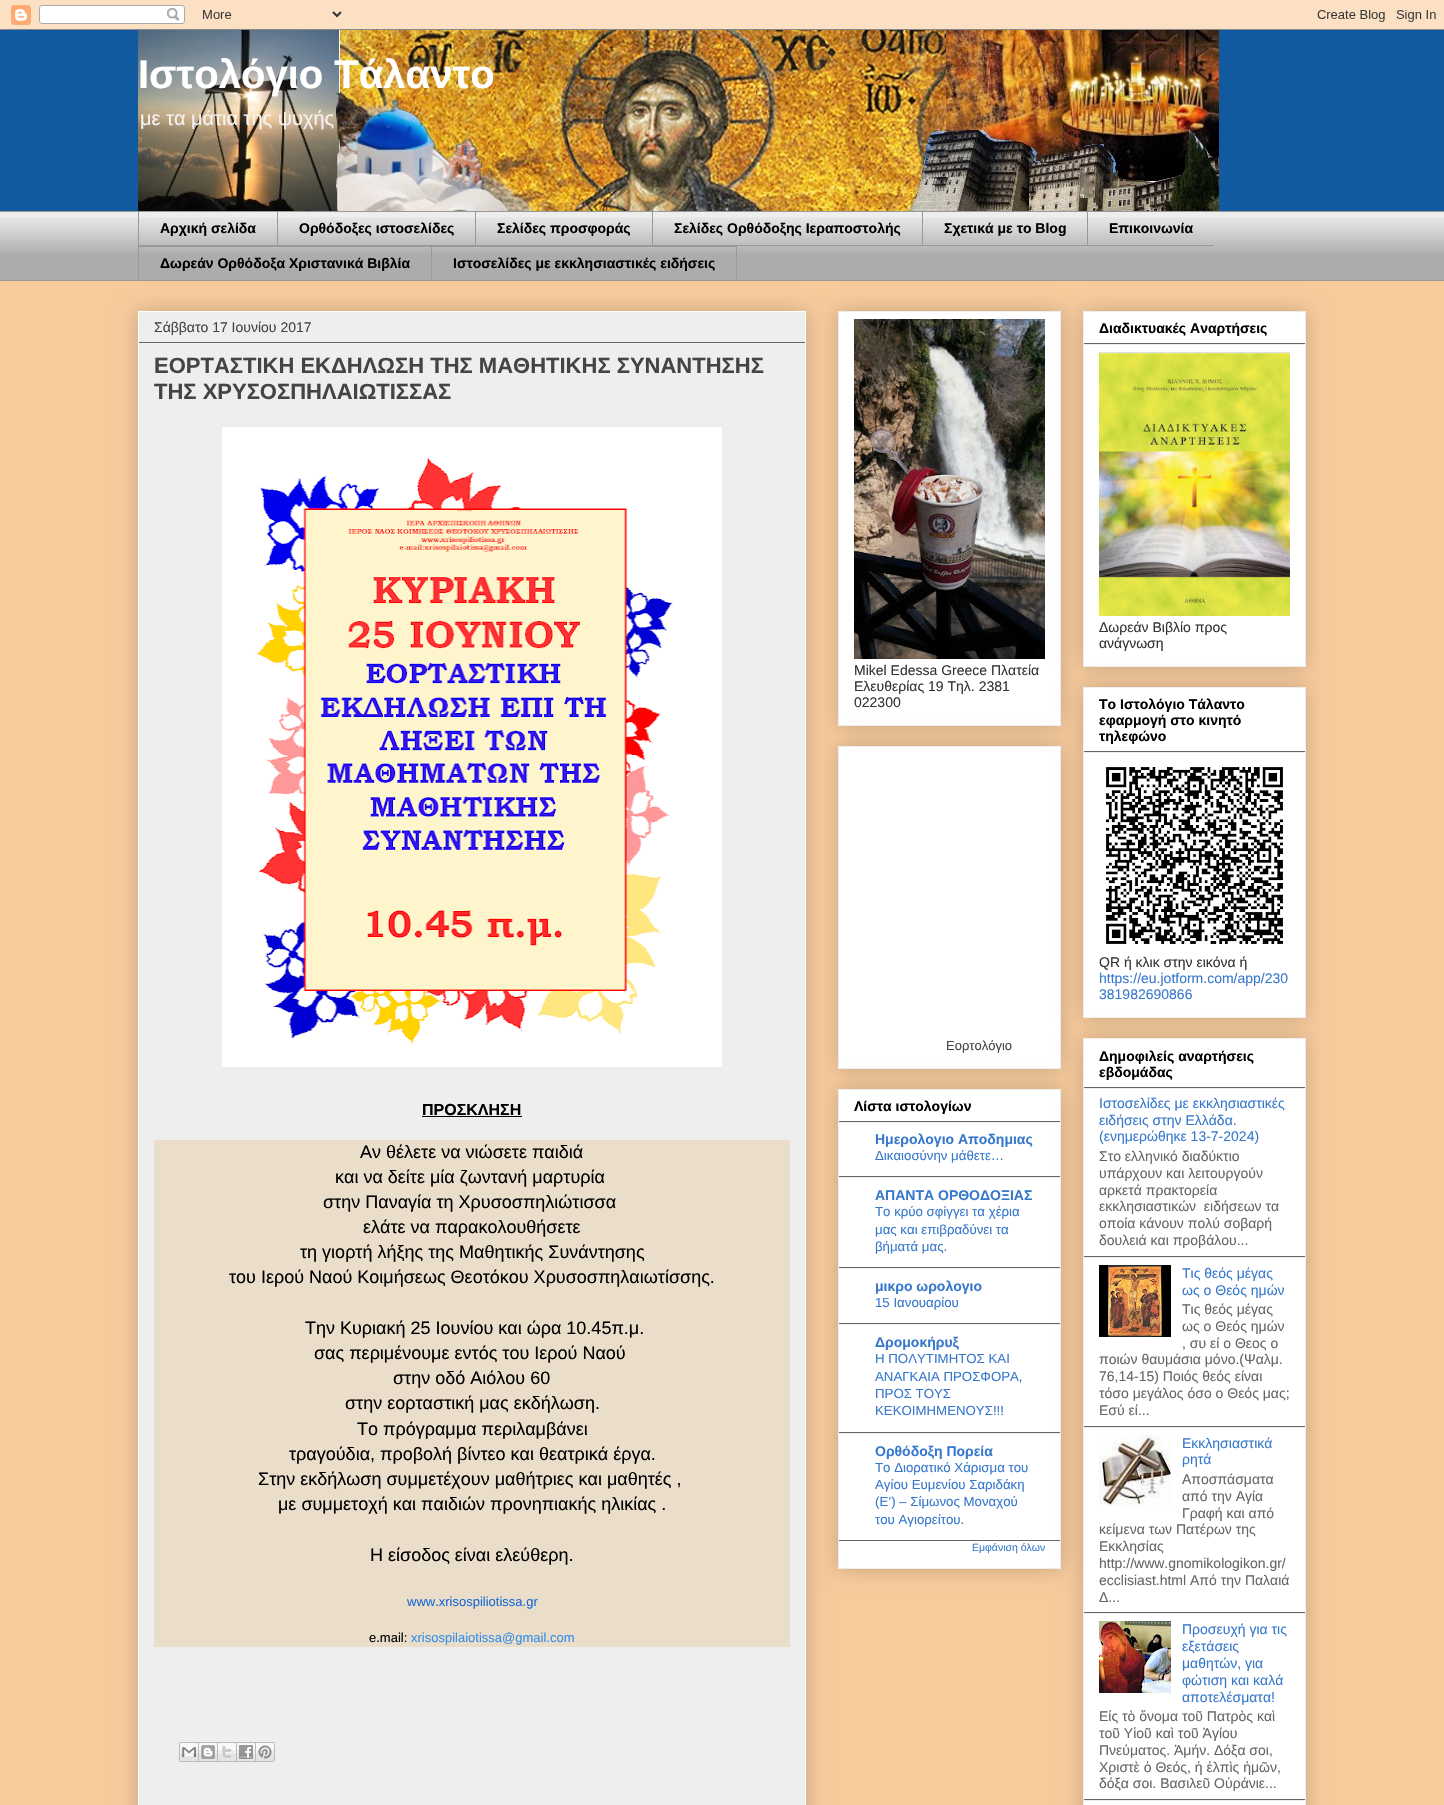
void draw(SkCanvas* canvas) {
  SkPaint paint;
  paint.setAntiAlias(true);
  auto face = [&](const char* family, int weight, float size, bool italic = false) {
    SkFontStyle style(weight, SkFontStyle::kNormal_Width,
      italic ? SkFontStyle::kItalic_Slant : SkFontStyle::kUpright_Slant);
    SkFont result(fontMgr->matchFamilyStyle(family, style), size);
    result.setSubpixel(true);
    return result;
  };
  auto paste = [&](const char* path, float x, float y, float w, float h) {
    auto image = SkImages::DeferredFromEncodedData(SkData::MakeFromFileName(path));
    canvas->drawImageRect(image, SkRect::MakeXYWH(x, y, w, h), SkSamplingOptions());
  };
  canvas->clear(0xfff8cb9d);
  paste("img/1.png", 0, 0, 1444, 30);
  paint.setColor(0xff115a9f);
  canvas->drawRect(SkRect::MakeXYWH(0, 30, 1444, 181), paint);
  paste("img/2.png", 138, 30, 1081, 181);
  paint.setColor(0xffeeeeee);
  canvas->drawRect(SkRect::MakeXYWH(0, 212, 1444, 68), paint);
  paste("img/3.png", 0, 217, 1444, 63);
  {
    const struct { float x, y, w, h; SkColor color; } items[] = {
      {0, 211, 1444, 1, 0xff999999},
      {138, 245, 1076, 1, 0xff999999},
      {138, 211, 1, 35, 0xff999999},
      {277, 211, 1, 35, 0xff999999},
      {475, 211, 1, 35, 0xff999999},
      {652, 211, 1, 35, 0xff999999},
      {922, 211, 1, 35, 0xff999999},
      {1087, 211, 1, 35, 0xff999999},
      {138, 246, 293, 1, 0xff999999},
      {138, 246, 1, 35, 0xff999999},
    };
    for (auto [x, y, w, h, color] : items) {
      paint.setColor(color);
      canvas->drawRect(SkRect::MakeXYWH(x, y, w, h), paint);
    }
  }
  paint.setStroke(true);
  paint.setStrokeWidth(1);
  canvas->drawRect(SkRect::MakeXYWH(431.5f, 246.5f, 305, 34), paint);
  paint.setStroke(false);
  canvas->drawRect(SkRect::MakeXYWH(0, 280, 1444, 1), paint);
  paint.setColor(0x33000000);
  paint.setMaskFilter(SkMaskFilter::MakeBlur(kNormal_SkBlurStyle, 10));
  canvas->drawRect(SkRect::MakeXYWH(138, 311, 668, 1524), paint);
  paint.setMaskFilter(nullptr);
  paint.setColor(0xffeeeeee);
  canvas->drawRect(SkRect::MakeXYWH(138.5f, 311.5f, 667, 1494), paint);
  paint.setStroke(true);
  paint.setColor(0xffffffff);
  canvas->drawRect(SkRect::MakeXYWH(138.5f, 311.5f, 667, 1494), paint);
  paint.setStroke(false);
  paint.setColor(0xff666666);
  canvas->drawRect(SkRect::MakeXYWH(139, 342, 666, 1), paint);
  paste("img/4.png", 222, 427, 500, 640);
  paint.setColor(0xff000000);
  canvas->drawRect(SkRect::MakeXYWH(422, 1116, 100, 1), paint);
  paint.setColor(0xffeadeca);
  canvas->drawRect(SkRect::MakeXYWH(154, 1140, 636, 507), paint);
  paste("img/5.png", 179, 1742, 20, 20);
  paste("img/6.png", 199, 1742, 19, 20);
  paste("img/7.png", 218, 1742, 19, 20);
  paste("img/8.png", 237, 1742, 19, 20);
  paste("img/9.png", 256, 1742, 19, 20);
  paint.setColor(0x33000000);
  paint.setMaskFilter(SkMaskFilter::MakeBlur(kNormal_SkBlurStyle, 10));
  canvas->drawRect(SkRect::MakeXYWH(838, 311, 223, 415), paint);
  paint.setMaskFilter(nullptr);
  paint.setColor(0xffffffff);
  canvas->drawRect(SkRect::MakeXYWH(838.5f, 311.5f, 222, 414), paint);
  paint.setStroke(true);
  paint.setColor(0xffeeeeee);
  canvas->drawRect(SkRect::MakeXYWH(838.5f, 311.5f, 222, 414), paint);
  paste("img/10.png", 854, 319, 191, 340);
  paint.setStroke(false);
  paint.setColor(0x33000000);
  paint.setMaskFilter(SkMaskFilter::MakeBlur(kNormal_SkBlurStyle, 10));
  canvas->drawRect(SkRect::MakeXYWH(838, 746, 223, 323), paint);
  paint.setMaskFilter(nullptr);
  paint.setColor(0xffffffff);
  canvas->drawRect(SkRect::MakeXYWH(838.5f, 746.5f, 222, 322), paint);
  paint.setStroke(true);
  paint.setColor(0xffeeeeee);
  canvas->drawRect(SkRect::MakeXYWH(838.5f, 746.5f, 222, 322), paint);
  paint.setStroke(false);
  paint.setColor(0x33000000);
  paint.setMaskFilter(SkMaskFilter::MakeBlur(kNormal_SkBlurStyle, 10));
  canvas->drawRect(SkRect::MakeXYWH(838, 1089, 223, 480), paint);
  paint.setMaskFilter(nullptr);
  paint.setColor(0xffffffff);
  canvas->drawRect(SkRect::MakeXYWH(838.5f, 1089.5f, 222, 479), paint);
  paint.setStroke(true);
  paint.setColor(0xffeeeeee);
  canvas->drawRect(SkRect::MakeXYWH(838.5f, 1089.5f, 222, 479), paint);
  paint.setStroke(false);
  {
    const struct { float x, y, w, h; SkColor color; } items[] = {
      {839, 1121, 221, 1, 0xff666666},
      {839, 1122, 221, 1, 0xffeeeeee},
      {839, 1176, 221, 1, 0xff666666},
      {839, 1177, 221, 1, 0xffeeeeee},
      {839, 1267, 221, 1, 0xff666666},
      {839, 1268, 221, 1, 0xffeeeeee},
      {839, 1323, 221, 1, 0xff666666},
      {839, 1324, 221, 1, 0xffeeeeee},
      {839, 1432, 221, 1, 0xff666666},
      {839, 1433, 221, 1, 0xffeeeeee},
      {839, 1540, 221, 1, 0xff666666},
    };
    for (auto [x, y, w, h, color] : items) {
      paint.setColor(color);
      canvas->drawRect(SkRect::MakeXYWH(x, y, w, h), paint);
    }
  }
  paint.setColor(0x33000000);
  paint.setMaskFilter(SkMaskFilter::MakeBlur(kNormal_SkBlurStyle, 10));
  canvas->drawRect(SkRect::MakeXYWH(1083, 311, 223, 356), paint);
  paint.setMaskFilter(nullptr);
  paint.setColor(0xffffffff);
  canvas->drawRect(SkRect::MakeXYWH(1083.5f, 311.5f, 222, 355), paint);
  paint.setStroke(true);
  paint.setColor(0xffeeeeee);
  canvas->drawRect(SkRect::MakeXYWH(1083.5f, 311.5f, 222, 355), paint);
  paint.setStroke(false);
  paint.setColor(0xff666666);
  canvas->drawRect(SkRect::MakeXYWH(1084, 343, 221, 1), paint);
  paint.setColor(0xffeeeeee);
  canvas->drawRect(SkRect::MakeXYWH(1084, 344, 221, 1), paint);
  paste("img/11.png", 1099, 352, 191, 264);
  paint.setColor(0x33000000);
  paint.setMaskFilter(SkMaskFilter::MakeBlur(kNormal_SkBlurStyle, 10));
  canvas->drawRect(SkRect::MakeXYWH(1083, 687, 223, 331), paint);
  paint.setMaskFilter(nullptr);
  paint.setColor(0xffffffff);
  canvas->drawRect(SkRect::MakeXYWH(1083.5f, 687.5f, 222, 330), paint);
  paint.setStroke(true);
  paint.setColor(0xffeeeeee);
  canvas->drawRect(SkRect::MakeXYWH(1083.5f, 687.5f, 222, 330), paint);
  paint.setStroke(false);
  paint.setColor(0xff666666);
  canvas->drawRect(SkRect::MakeXYWH(1084, 751, 221, 1), paint);
  paint.setColor(0xffeeeeee);
  canvas->drawRect(SkRect::MakeXYWH(1084, 752, 221, 1), paint);
  paste("img/12.png", 1106, 767, 177, 177);
  paint.setColor(0x33000000);
  paint.setMaskFilter(SkMaskFilter::MakeBlur(kNormal_SkBlurStyle, 10));
  canvas->drawRect(SkRect::MakeXYWH(1083, 1038, 223, 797), paint);
  paint.setMaskFilter(nullptr);
  paint.setColor(0xffffffff);
  canvas->drawRect(SkRect::MakeXYWH(1083.5f, 1038.5f, 222, 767), paint);
  paint.setStroke(true);
  paint.setColor(0xffeeeeee);
  canvas->drawRect(SkRect::MakeXYWH(1083.5f, 1038.5f, 222, 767), paint);
  paint.setStroke(false);
  {
    const struct { float x, y, w, h; SkColor color; } items[] = {
      {1084, 1087, 221, 1, 0xff666666},
      {1084, 1088, 221, 1, 0xffeeeeee},
      {1084, 1256, 221, 1, 0xff666666},
      {1084, 1257, 221, 1, 0xffeeeeee},
      {1084, 1426, 221, 1, 0xff666666},
    };
    for (auto [x, y, w, h, color] : items) {
      paint.setColor(color);
      canvas->drawRect(SkRect::MakeXYWH(x, y, w, h), paint);
    }
  }
  paste("img/13.png", 1099, 1265, 72, 72);
  paint.setColor(0xffeeeeee);
  canvas->drawRect(SkRect::MakeXYWH(1084, 1427, 221, 1), paint);
  paint.setColor(0xff666666);
  canvas->drawRect(SkRect::MakeXYWH(1084, 1612, 221, 1), paint);
  paste("img/14.png", 1099, 1435, 72, 72);
  paint.setColor(0xffeeeeee);
  canvas->drawRect(SkRect::MakeXYWH(1084, 1613, 221, 1), paint);
  paint.setColor(0xff666666);
  canvas->drawRect(SkRect::MakeXYWH(1084, 1799, 221, 1), paint);
  paste("img/15.png", 1099, 1621, 72, 72);
  paint.setColor(0xffeeeeee);
  canvas->drawRect(SkRect::MakeXYWH(1084, 1800, 221, 1), paint);
  auto f0 = face("Liberation Sans", 700, 40);
  paint.setColor(0xffffffff);
  canvas->drawString("Ιστολόγιο Τάλαντο", 138, 88, f0, paint);
  auto f1 = face("Liberation Sans", 400, 20);
  paint.setColor(0xfff3f3f3);
  canvas->drawString("με τα μάτια της ψυχής", 140, 125, f1, paint);
  auto f2 = face("Liberation Sans", 700, 14);
  paint.setColor(0xff000000);
  {
    const struct { const char* s; float x, y; } items[] = {
      {"Αρχική σελίδα", 160, 233},
      {"Ορθόδοξες ιστοσελίδες", 299, 233},
      {"Σελίδες προσφοράς", 497, 233},
      {"Σελίδες Ορθόδοξης Ιεραποστολής", 674, 233},
      {"Σχετικά με το Blog", 944, 233},
      {"Επικοινωνία", 1109, 233},
      {"Δωρεάν Ορθόδοξα Χριστανικά Βιβλία", 160, 268},
      {"Ιστοσελίδες με εκκλησιαστικές ειδήσεις", 453, 268},
    };
    for (auto [s, x, y] : items) {
      canvas->drawString(s, x, y, f2, paint);
    }
  }
  auto f3 = face("Liberation Sans", 400, 14);
  paint.setColor(0xff444444);
  canvas->drawString("Σάββατο 17 Ιουνίου 2017", 154, 332, f3, paint);
  auto f4 = face("Liberation Sans", 700, 22);
  canvas->drawString("ΕΟΡΤΑΣΤΙΚΗ ΕΚΔΗΛΩΣΗ ΤΗΣ ΜΑΘΗΤΙΚΗΣ ΣΥΝΑΝΤΗΣΗΣ", 154, 373, f4, paint);
  canvas->drawString("ΤΗΣ ΧΡΥΣΟΣΠΗΛΑΙΩΤΙΣΣΑΣ", 154, 399, f4, paint);
  auto f5 = face("Liberation Sans", 700, 16);
  paint.setColor(0xff000000);
  canvas->drawString("ΠΡΟΣΚΛΗΣΗ", 422, 1115, f5, paint);
  auto f6 = face("Liberation Sans", 400, 18);
  {
    const struct { const char* s; float x, y; } items[] = {
      {"Αν θέλετε να νιώσετε παιδιά", 360, 1158},
      {"και να δείτε μία ζωντανή μαρτυρία", 335, 1183},
      {"στην Παναγία τη Χρυσοσπηλιώτισσα", 323, 1208},
      {"ελάτε να παρακολουθήσετε", 363, 1233},
      {"τη γιορτή λήξης της Μαθητικής Συνάντησης", 300, 1258},
      {"του Ιερού Ναού Κοιμήσεως Θεοτόκου Χρυσοσπηλαιωτίσσης.", 229, 1283},
      {"Την Κυριακή 25 Ιουνίου και ώρα 10.45π.μ.", 305, 1334},
      {"σας περιμένουμε εντός του Ιερού Ναού", 314, 1359},
      {"στην οδό Αιόλου 60", 393, 1384},
      {"στην εορταστική μας εκδήλωση.", 345, 1409},
      {"Το πρόγραμμα περιλαμβάνει", 357, 1435},
      {"τραγούδια, προβολή βίντεο και θεατρικά έργα.", 289, 1460},
      {"Στην εκδήλωση συμμετέχουν μαθήτριες και μαθητές ,", 258, 1485},
      {"με συμμετοχή και παιδιών προνηπιακής ηλικίας .", 278, 1510},
      {"H είσοδος είναι ελεύθερη.", 370, 1561},
    };
    for (auto [s, x, y] : items) {
      canvas->drawString(s, x, y, f6, paint);
    }
  }
  auto f7 = face("Liberation Sans", 400, 13);
  paint.setColor(0xff196ad4);
  canvas->drawString("www.xrisospiliotissa.gr", 407, 1606, f7, paint);
  paint.setColor(0xff000000);
  canvas->drawString("e.mail:", 369, 1642, f7, paint);
  paint.setColor(0xff338fe9);
  canvas->drawString("xrisospilaiotissa@gmail.com", 411, 1642, f7, paint);
  paint.setColor(0xff353333);
  {
    const struct { const char* s; float x, y; } items[] = {
      {"Mikel Edessa Greece Πλατεία", 854, 675},
      {"Ελευθερίας 19 Τηλ. 2381", 854, 691},
      {"022300", 854, 707},
    };
    for (auto [s, x, y] : items) {
      canvas->drawString(s, x, y, f3, paint);
    }
  }
  paint.setColor(0xff444444);
  canvas->drawString("Εορτολόγιο", 946, 1050, f7, paint);
  paint.setColor(0xff000000);
  canvas->drawString("Λίστα ιστολογίων", 854, 1111, f2, paint);
  paint.setColor(0xff3778cd);
  canvas->drawString("Ημερολογιο Αποδημιας", 875, 1144, f2, paint);
  auto f8 = face("Liberation Sans", 400, 13.25f);
  canvas->drawString("Δικαιοσύνην μάθετε…", 875, 1160, f8, paint);
  canvas->drawString("ΑΠΑΝΤΑ ΟΡΘΟΔΟΞΙΑΣ", 875, 1200, f2, paint);
  {
    const struct { const char* s; float x, y; } items[] = {
      {"Το κρύο σφίγγει τα χέρια", 875, 1216},
      {"μας και επιβραδύνει τα", 875, 1234},
      {"βήματά μας.", 875, 1251},
    };
    for (auto [s, x, y] : items) {
      canvas->drawString(s, x, y, f8, paint);
    }
  }
  canvas->drawString("μικρο ωρολογιο", 875, 1291, f2, paint);
  canvas->drawString("15 Ιανουαρίου", 875, 1307, f8, paint);
  canvas->drawString("Δρομοκήρυξ", 875, 1347, f2, paint);
  {
    const struct { const char* s; float x, y; } items[] = {
      {"Η ΠΟΛΥΤΙΜΗΤΟΣ ΚΑΙ", 875, 1363},
      {"ΑΝΑΓΚΑΙΑ ΠΡΟΣΦΟΡΑ,", 875, 1381},
      {"ΠΡΟΣ ΤΟΥΣ", 875, 1398},
      {"ΚΕΚΟΙΜΗΜΕΝΟΥΣ!!!", 875, 1415},
    };
    for (auto [s, x, y] : items) {
      canvas->drawString(s, x, y, f8, paint);
    }
  }
  canvas->drawString("Ορθόδοξη Πορεία", 875, 1456, f2, paint);
  {
    const struct { const char* s; float x, y; } items[] = {
      {"Το Διορατικό Χάρισμα του", 875, 1472},
      {"Αγίου Ευμενίου Σαριδάκη", 875, 1489},
      {"(Ε’) – Σίμωνος Μοναχού", 875, 1506},
      {"του Αγιορείτου.", 875, 1524},
    };
    for (auto [s, x, y] : items) {
      canvas->drawString(s, x, y, f8, paint);
    }
  }
  auto f9 = face("Liberation Sans", 400, 10.5f);
  canvas->drawString("Εμφάνιση όλων", 972, 1551, f9, paint);
  paint.setColor(0xff000000);
  canvas->drawString("Διαδικτυακές Αναρτήσεις", 1099, 333, f2, paint);
  paint.setColor(0xff353333);
  canvas->drawString("Δωρεάν Βιβλίο προς", 1099, 632, f3, paint);
  canvas->drawString("ανάγνωση", 1099, 648, f3, paint);
  paint.setColor(0xff000000);
  {
    const struct { const char* s; float x, y; } items[] = {
      {"Το Ιστολόγιο Τάλαντο", 1099, 709},
      {"εφαρμογή στο κινητό", 1099, 725},
      {"τηλεφώνο", 1099, 741},
    };
    for (auto [s, x, y] : items) {
      canvas->drawString(s, x, y, f2, paint);
    }
  }
  paint.setColor(0xff353333);
  canvas->drawString("QR ή κλικ στην εικόνα ή", 1099, 967, f3, paint);
  paint.setColor(0xff3778cd);
  canvas->drawString("https://eu.jotform.com/app/230", 1099, 983, f3, paint);
  canvas->drawString("381982690866", 1099, 999, f3, paint);
  paint.setColor(0xff000000);
  canvas->drawString("Δημοφιλείς αναρτήσεις", 1099, 1061, f2, paint);
  canvas->drawString("εβδομάδας", 1099, 1077, f2, paint);
  paint.setColor(0xff3778cd);
  {
    const struct { const char* s; float x, y; } items[] = {
      {"Ιστοσελίδες με εκκλησιαστικές", 1099, 1108},
      {"ειδήσεις στην Ελλάδα.", 1099, 1125},
      {"(ενημερώθηκε 13-7-2024)", 1099, 1141},
    };
    for (auto [s, x, y] : items) {
      canvas->drawString(s, x, y, f3, paint);
    }
  }
  paint.setColor(0xff666666);
  {
    const struct { const char* s; float x, y; } items[] = {
      {"Στο ελληνικό διαδύκτιο", 1099, 1161},
      {"υπάρχουν και λειτουργούν", 1099, 1178},
      {"αρκετά πρακτορεία", 1099, 1195},
      {"εκκλησιαστικών  ειδήσεων τα", 1099, 1211},
      {"οποία κάνουν πολύ σοβαρή", 1099, 1228},
      {"δουλειά και προβάλου...", 1099, 1245},
    };
    for (auto [s, x, y] : items) {
      canvas->drawString(s, x, y, f3, paint);
    }
  }
  paint.setColor(0xff3778cd);
  canvas->drawString("Τις θεός μέγας", 1182, 1278, f3, paint);
  canvas->drawString("ως ο Θεός ημών", 1182, 1295, f3, paint);
  paint.setColor(0xff666666);
  {
    const struct { const char* s; float x, y; } items[] = {
      {"Τις θεός μέγας", 1182, 1314},
      {"ως ο Θεός ημών", 1182, 1331},
      {", συ εί ο Θεος ο", 1182, 1348},
      {"ποιών θαυμάσια μόνο.(Ψαλμ.", 1099, 1364},
      {"76,14-15) Ποιός θεός είναι", 1099, 1381},
      {"τόσο μεγάλος όσο ο Θεός μας;", 1099, 1398},
      {"Εσύ εί...", 1099, 1415},
    };
    for (auto [s, x, y] : items) {
      canvas->drawString(s, x, y, f3, paint);
    }
  }
  paint.setColor(0xff3778cd);
  canvas->drawString("Εκκλησιαστικά", 1182, 1448, f3, paint);
  canvas->drawString("ρητά", 1182, 1464, f3, paint);
  paint.setColor(0xff666666);
  {
    const struct { const char* s; float x, y; } items[] = {
      {"Αποσπάσματα", 1182, 1484},
      {"από την Αγία", 1182, 1501},
      {"Γραφή και από", 1182, 1518},
      {"κείμενα των Πατέρων της", 1099, 1534},
      {"Εκκλησίας", 1099, 1551},
      {"http://www.gnomikologikon.gr/", 1099, 1568},
      {"ecclisiast.html Από την Παλαιά", 1099, 1585},
      {"Δ...", 1099, 1602},
    };
    for (auto [s, x, y] : items) {
      canvas->drawString(s, x, y, f3, paint);
    }
  }
  paint.setColor(0xff3778cd);
  {
    const struct { const char* s; float x, y; } items[] = {
      {"Προσευχή για τις", 1182, 1634},
      {"εξετάσεις", 1182, 1651},
      {"μαθητών, για", 1182, 1668},
      {"φώτιση και καλά", 1182, 1685},
      {"αποτελέσματα!", 1182, 1702},
    };
    for (auto [s, x, y] : items) {
      canvas->drawString(s, x, y, f3, paint);
    }
  }
  paint.setColor(0xff666666);
  {
    const struct { const char* s; float x, y; } items[] = {
      {"Εἰς τὸ ὄνομα τοῦ Πατρὸς καὶ", 1099, 1721},
      {"τοῦ Υἱοῦ καὶ τοῦ Ἁγίου", 1099, 1738},
      {"Πνεύματος. Ἀμήν. Δόξα σοι,", 1099, 1755},
      {"Χριστὲ ὁ Θεός, ἡ ἐλπὶς ἡμῶν,", 1099, 1772},
      {"δόξα σοι. Βασιλεῦ Οὐράνιε...", 1099, 1788},
    };
    for (auto [s, x, y] : items) {
      canvas->drawString(s, x, y, f3, paint);
    }
  }
}
